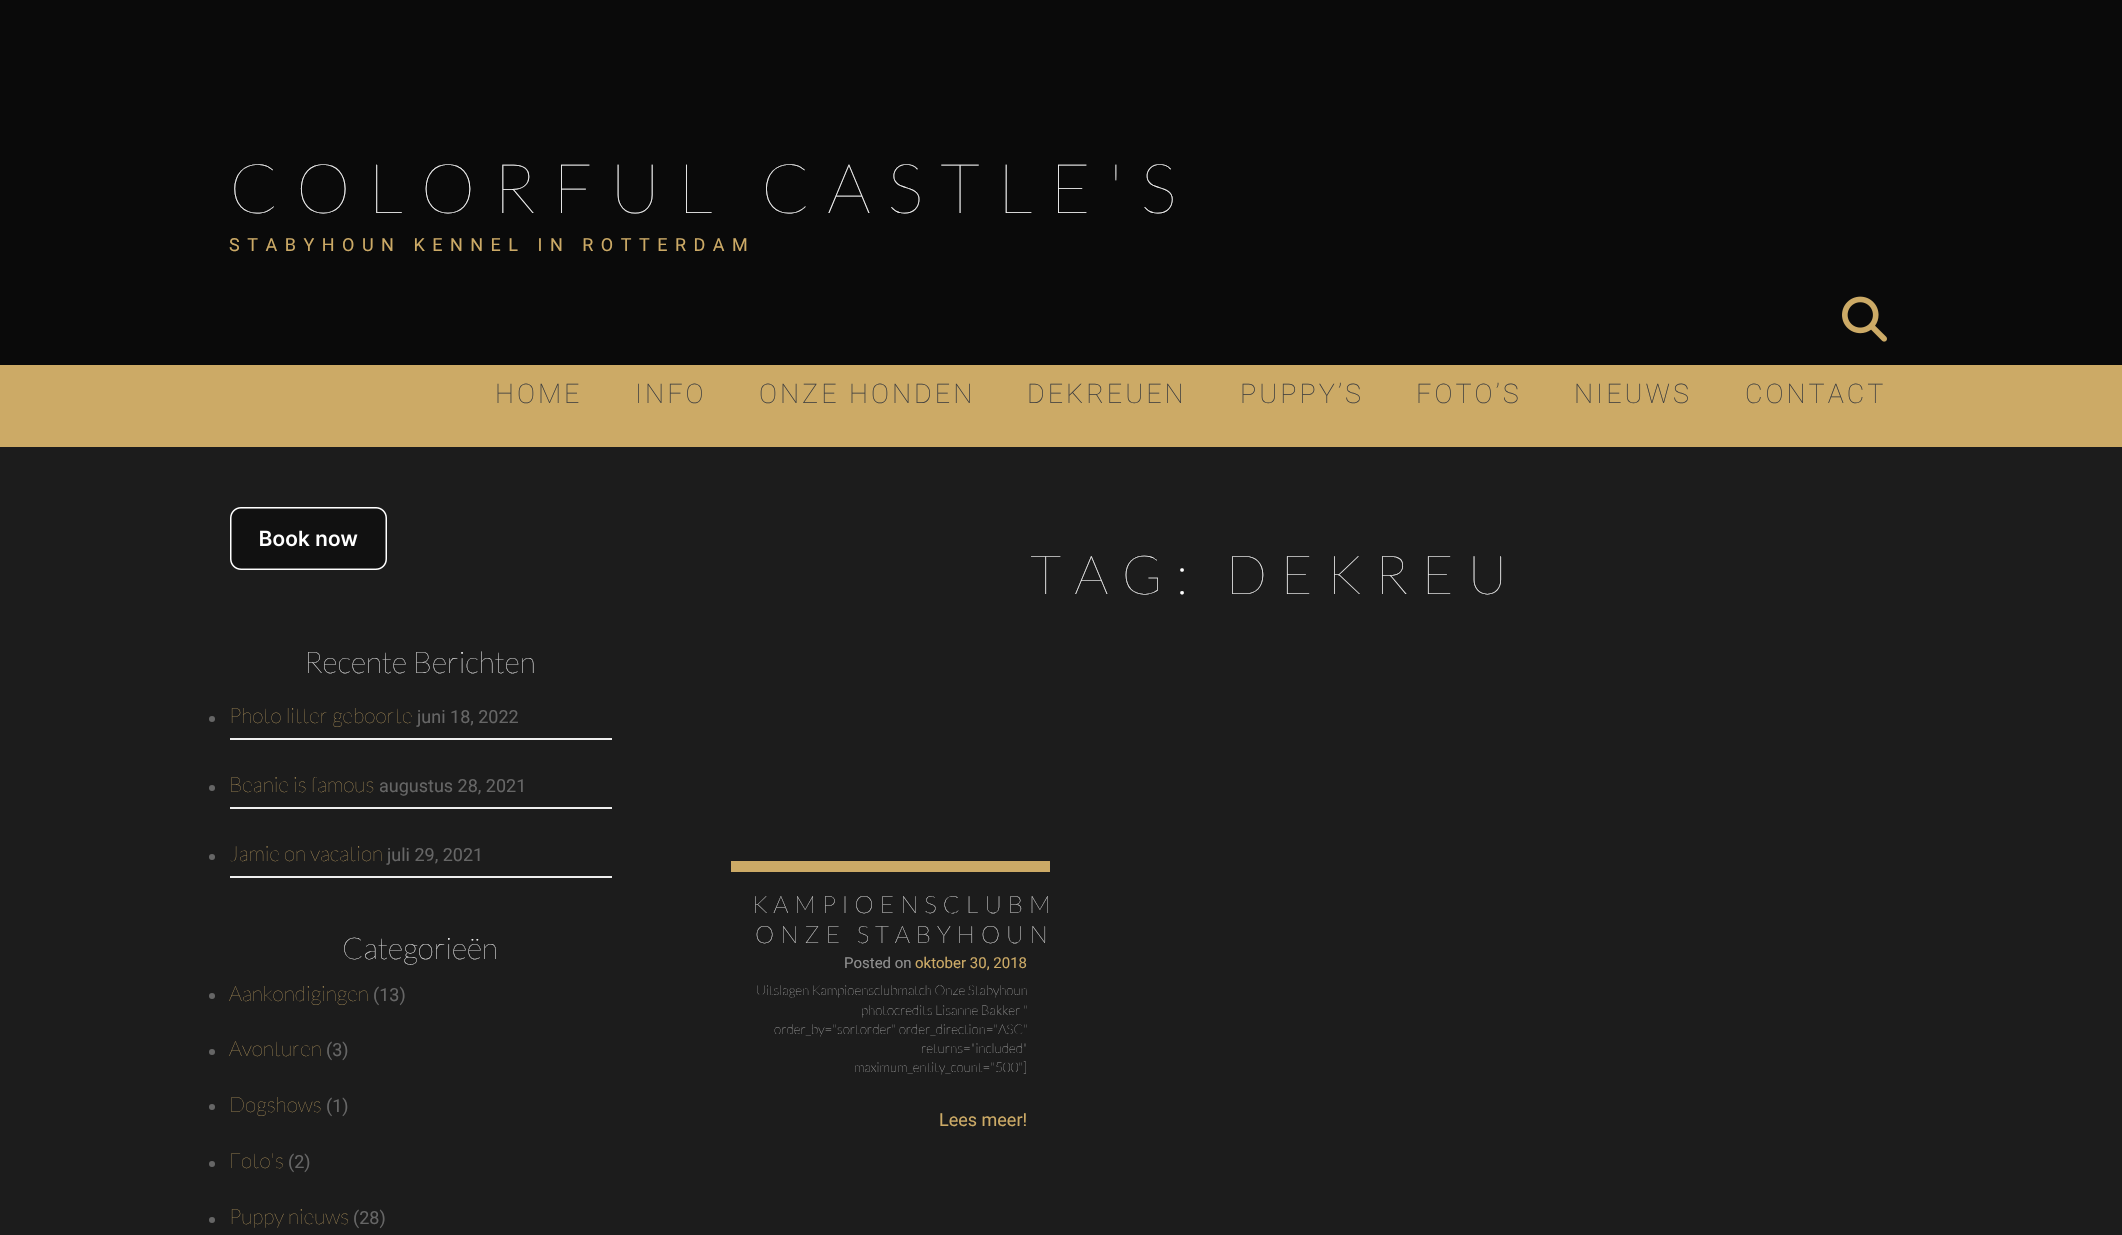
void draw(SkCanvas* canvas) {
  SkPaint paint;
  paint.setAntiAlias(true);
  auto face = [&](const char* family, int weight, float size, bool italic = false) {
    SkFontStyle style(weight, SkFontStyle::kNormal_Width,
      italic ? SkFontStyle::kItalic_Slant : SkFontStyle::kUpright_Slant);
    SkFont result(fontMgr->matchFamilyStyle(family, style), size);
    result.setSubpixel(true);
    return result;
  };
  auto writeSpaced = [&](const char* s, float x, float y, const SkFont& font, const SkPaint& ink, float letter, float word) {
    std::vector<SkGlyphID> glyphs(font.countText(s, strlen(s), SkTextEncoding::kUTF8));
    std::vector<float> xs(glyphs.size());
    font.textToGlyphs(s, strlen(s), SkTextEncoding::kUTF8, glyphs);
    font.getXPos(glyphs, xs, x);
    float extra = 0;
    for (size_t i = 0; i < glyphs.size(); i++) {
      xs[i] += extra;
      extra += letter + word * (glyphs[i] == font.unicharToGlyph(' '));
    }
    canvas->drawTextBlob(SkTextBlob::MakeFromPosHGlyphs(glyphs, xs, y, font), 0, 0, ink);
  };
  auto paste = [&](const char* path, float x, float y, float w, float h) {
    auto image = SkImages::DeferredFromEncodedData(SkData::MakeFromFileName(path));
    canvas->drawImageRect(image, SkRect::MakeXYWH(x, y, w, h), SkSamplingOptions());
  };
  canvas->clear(0xff0a0a0a);
  paste("img/1.png", 1842, 296, 45, 46);
  paint.setColor(0xffccaa66);
  canvas->drawRect(SkRect::MakeXYWH(0, 365, 2122, 82), paint);
  paint.setColor(0xff1c1c1c);
  canvas->drawRect(SkRect::MakeXYWH(0, 447, 2122, 788), paint);
  paste("img/2.png", 230, 507, 157, 63);
  paint.setColor(0xffeeeeee);
  canvas->drawRect(SkRect::MakeXYWH(230, 738, 382, 2), paint);
  paint.setColor(0xff666666);
  canvas->drawCircle(212, 719, 3, paint);
  paint.setColor(0xffeeeeee);
  canvas->drawRect(SkRect::MakeXYWH(230, 807, 382, 2), paint);
  paint.setColor(0xff666666);
  canvas->drawCircle(212, 788, 3, paint);
  paint.setColor(0xffeeeeee);
  canvas->drawRect(SkRect::MakeXYWH(230, 876, 382, 2), paint);
  paint.setColor(0xff666666);
  canvas->drawCircle(212, 857, 3, paint);
  canvas->drawCircle(212, 996, 3, paint);
  canvas->drawCircle(212, 1052, 3, paint);
  canvas->drawCircle(212, 1107, 3, paint);
  canvas->drawCircle(212, 1164, 3, paint);
  canvas->drawCircle(212, 1220, 3, paint);
  paint.setColor(0xffccaa66);
  canvas->drawRect(SkRect::MakeXYWH(731, 861, 319, 11), paint);
  auto f0 = face("Lato", 100, 69);
  paint.setColor(0xffffffff);
  writeSpaced("COLORFUL CASTLE'S", 229, 213, f0, paint, 17.25f, 0);
  auto f1 = face("Roboto", 400, 18);
  paint.setColor(0xffccaa66);
  writeSpaced("STABYHOUN KENNEL IN ROTTERDAM", 229, 251, f1, paint, 7.5f, 0);
  auto f2 = face("Roboto", 100, 27);
  paint.setColor(0xff404040);
  {
    const struct { const char* s; float x, y; } items[] = {
      {"HOME", 495, 403},
      {"INFO", 635, 403},
      {"ONZE HONDEN", 759, 403},
      {"DEKREUEN", 1027, 403},
      {"PUPPY’S", 1240, 403},
      {"FOTO’S", 1416, 403},
      {"NIEUWS", 1574, 403},
      {"CONTACT", 1745, 403},
    };
    for (auto [s, x, y] : items) {
      writeSpaced(s, x, y, f2, paint, 3, 0);
    }
  }
  auto f3 = face("Lato", 100, 30);
  paint.setColor(0xffffffff);
  canvas->drawString("Recente Berichten", 304, 673, f3, paint);
  auto f4 = face("Lato", 100, 21);
  paint.setColor(0xffccaa66);
  canvas->drawString("Photo litter geboorte", 229, 723, f4, paint);
  paint.setColor(0xff666666);
  canvas->drawString("juni 18, 2022", 417, 723, f1, paint);
  paint.setColor(0xffccaa66);
  canvas->drawString("Beanie is famous", 229, 792, f4, paint);
  paint.setColor(0xff666666);
  canvas->drawString("augustus 28, 2021", 379, 792, f1, paint);
  paint.setColor(0xffccaa66);
  canvas->drawString("Jamie on vacation", 229, 861, f4, paint);
  paint.setColor(0xff666666);
  canvas->drawString("juli 29, 2021", 387, 861, f1, paint);
  paint.setColor(0xffffffff);
  canvas->drawString("Categorieën", 342, 959, f3, paint);
  paint.setColor(0xffccaa66);
  canvas->drawString("Aankondigingen", 229, 1001, f4, paint);
  paint.setColor(0xff666666);
  canvas->drawString("(13)", 373, 1001, f1, paint);
  paint.setColor(0xffccaa66);
  canvas->drawString("Avonturen", 229, 1056, f4, paint);
  paint.setColor(0xff666666);
  canvas->drawString("(3)", 326, 1056, f1, paint);
  paint.setColor(0xffccaa66);
  canvas->drawString("Dogshows", 229, 1112, f4, paint);
  paint.setColor(0xff666666);
  canvas->drawString("(1)", 326, 1112, f1, paint);
  paint.setColor(0xffccaa66);
  canvas->drawString("Foto's", 229, 1168, f4, paint);
  paint.setColor(0xff666666);
  canvas->drawString("(2)", 288, 1168, f1, paint);
  paint.setColor(0xffccaa66);
  canvas->drawString("Puppy nieuws", 229, 1224, f4, paint);
  paint.setColor(0xff666666);
  canvas->drawString("(28)", 353, 1224, f1, paint);
  auto f5 = face("Lato", 100, 54);
  paint.setColor(0xffffffff);
  writeSpaced("TAG: DEKREU", 1030, 594, f5, paint, 13.5f, 0);
  auto f6 = face("Lato", 100, 24);
  writeSpaced("KAMPIOENSCLUBM", 752, 913, f6, paint, 6, 0);
  writeSpaced("ONZE STABYHOUN", 755, 943, f6, paint, 6, 0);
  auto f7 = face("Roboto", 400, 15);
  paint.setColor(0xff909090);
  canvas->drawString("Posted on", 844, 968, f7, paint);
  paint.setColor(0xffccaa66);
  canvas->drawString("oktober 30, 2018", 915, 968, f7, paint);
  auto f8 = face("Lato", 100, 13.5f);
  paint.setColor(0xffd9d9d9);
  {
    const struct { const char* s; float x, y; } items[] = {
      {"Uitslagen Kampioensclubmatch Onze Stabyhoun", 756, 995},
      {"photocredits Lisanne Bakker \"", 861, 1015},
      {"order_by=\"sortorder\" order_direction=\"ASC\"", 774, 1034},
      {"returns=\"included\"", 921, 1053},
      {"maximum_entity_count=\"500\"]", 854, 1072},
    };
    for (auto [s, x, y] : items) {
      canvas->drawString(s, x, y, f8, paint);
    }
  }
  paint.setColor(0xffccaa66);
  canvas->drawString("Lees meer!", 939, 1126, f1, paint);
}
